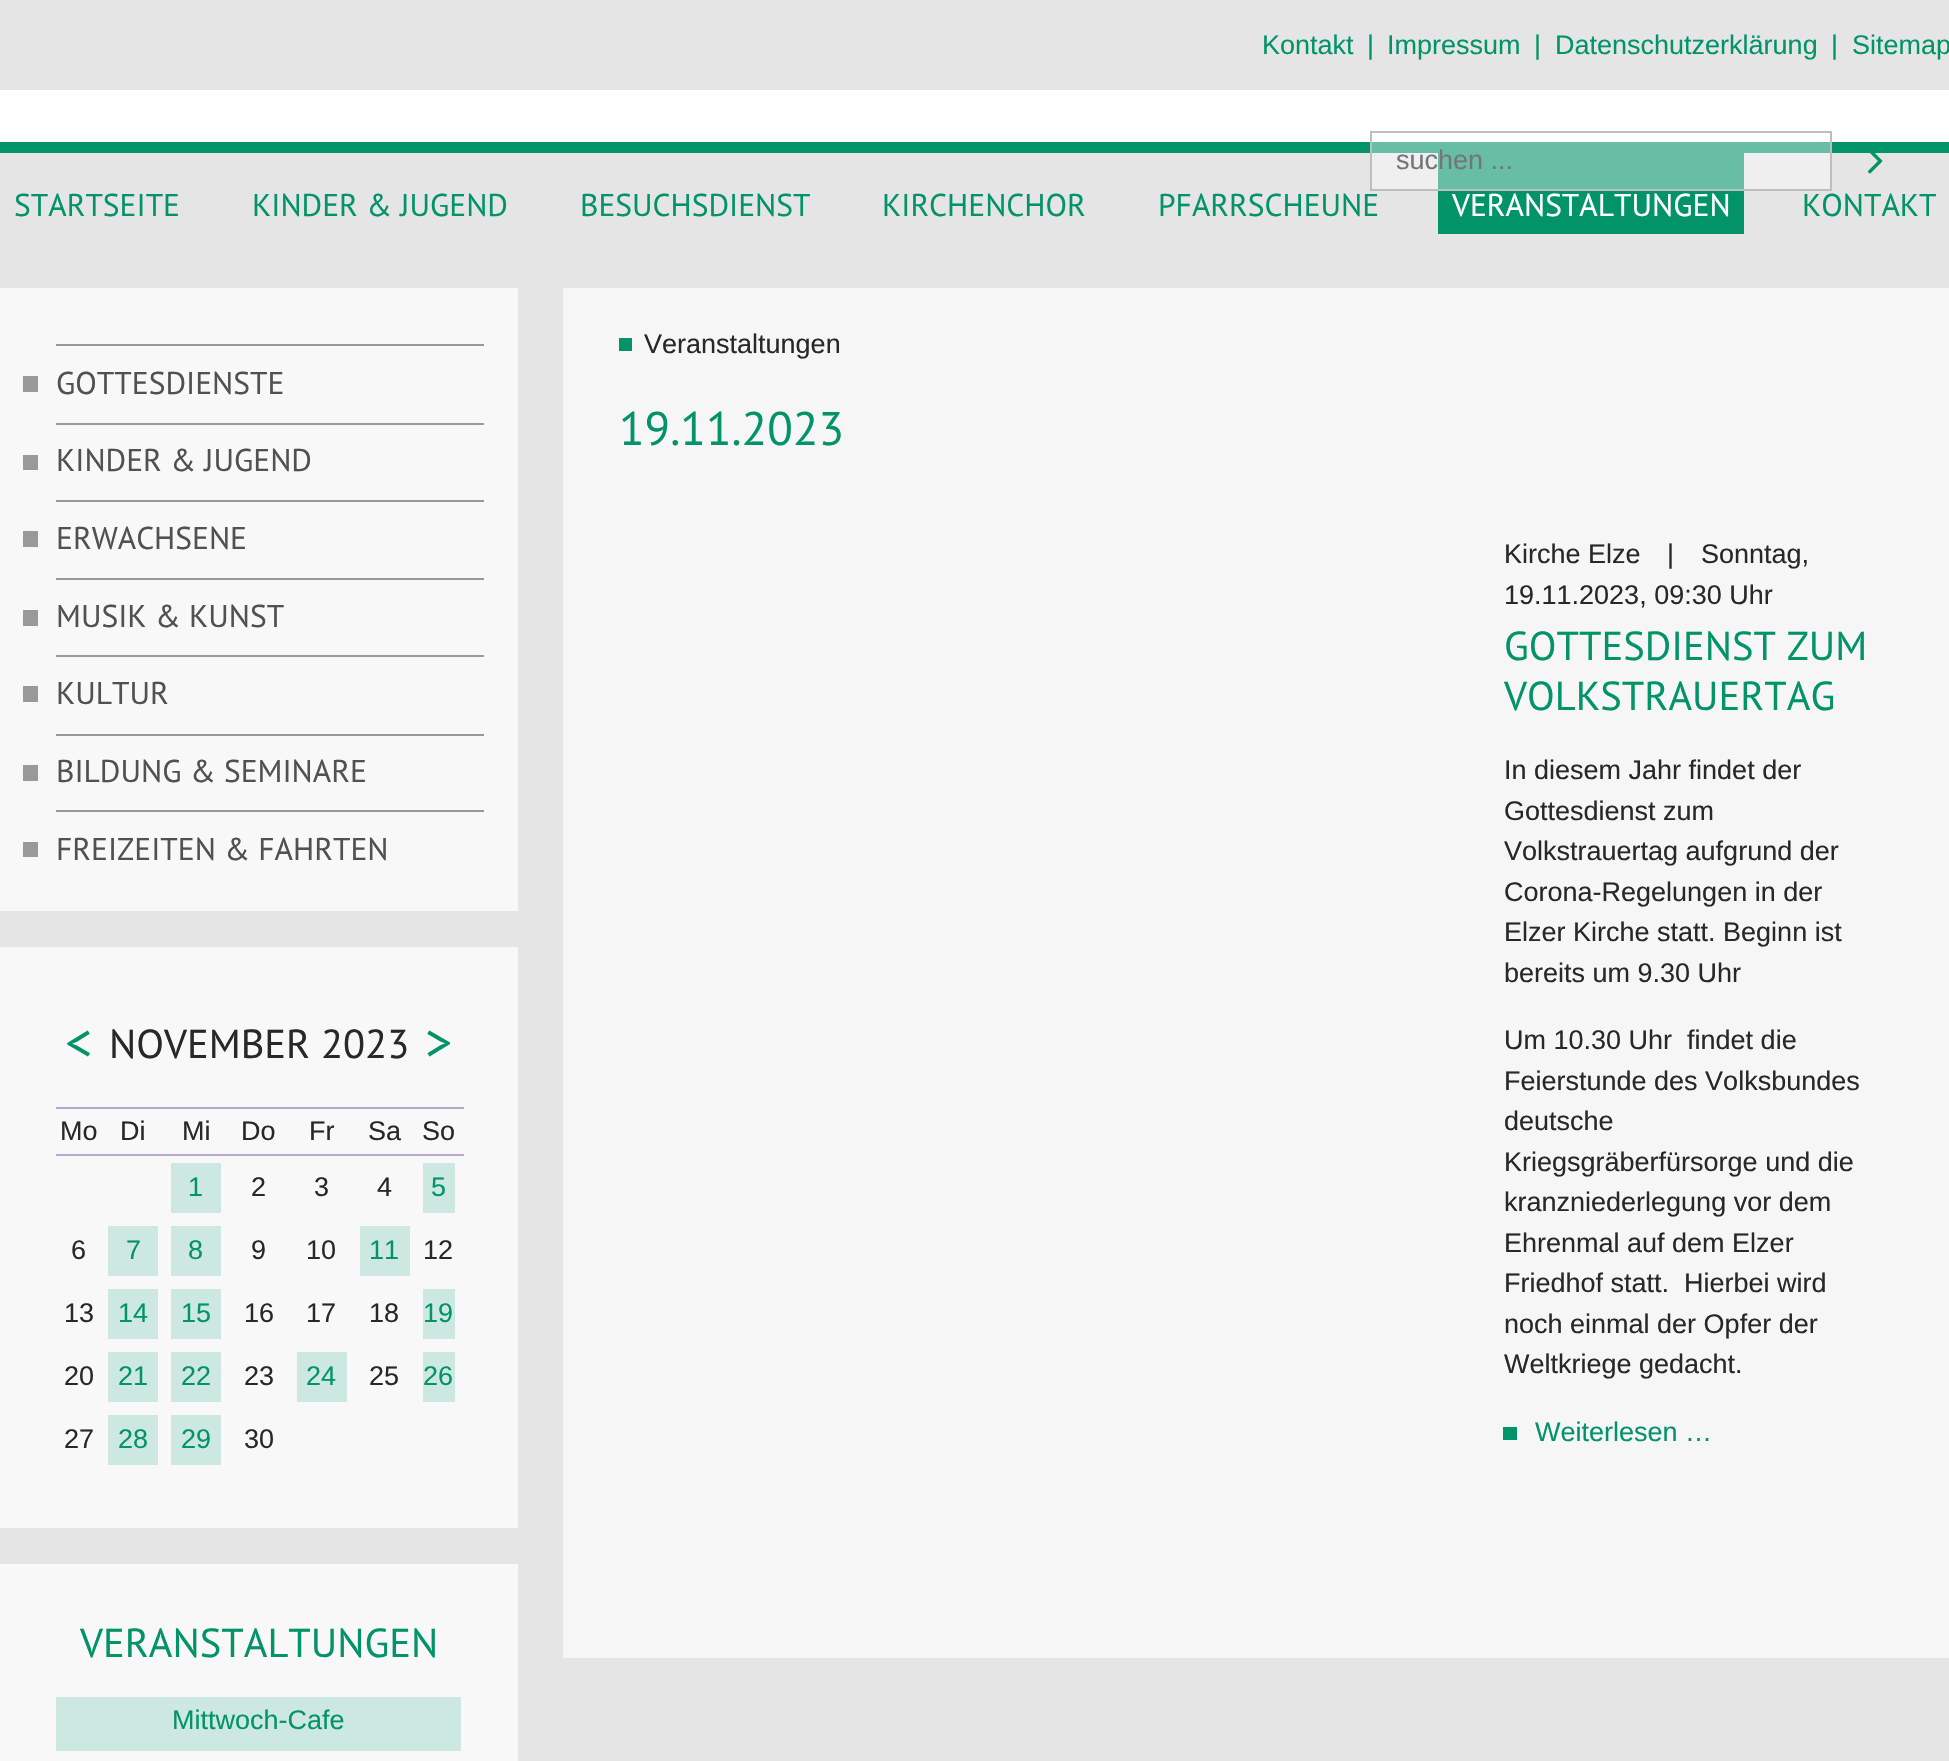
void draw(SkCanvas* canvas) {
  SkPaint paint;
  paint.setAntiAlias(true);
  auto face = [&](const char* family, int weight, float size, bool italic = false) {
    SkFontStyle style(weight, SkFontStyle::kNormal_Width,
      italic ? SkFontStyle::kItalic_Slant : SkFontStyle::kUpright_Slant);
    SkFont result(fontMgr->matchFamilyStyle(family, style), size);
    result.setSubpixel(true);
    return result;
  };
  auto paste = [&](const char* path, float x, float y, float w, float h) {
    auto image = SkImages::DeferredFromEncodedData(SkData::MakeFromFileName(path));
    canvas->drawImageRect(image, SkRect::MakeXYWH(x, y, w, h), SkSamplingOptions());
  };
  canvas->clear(0xffe5e5e5);
  {
    const struct { float x, y, w, h; SkColor color; } items[] = {
      {1372, 153, 458, 36, 0xffefefef},
      {0, 142, 1949, 11, 0xff039369},
      {1372, 142, 458, 11, 0xff68bea5},
      {0, 90, 1949, 52, 0xffffffff},
      {1438, 153, 306, 36, 0xff68bea5},
    };
    for (auto [x, y, w, h, color] : items) {
      paint.setColor(color);
      canvas->drawRect(SkRect::MakeXYWH(x, y, w, h), paint);
    }
  }
  paint.setStroke(true);
  paint.setStrokeWidth(2);
  paint.setColor(0xffbebebe);
  canvas->drawRect(SkRect::MakeXYWH(1371, 132, 460, 58), paint);
  paste("img/1.png", 1867, 153, 16, 21);
  paint.setStroke(false);
  {
    const struct { float x, y, w, h; SkColor color; } items[] = {
      {1438, 191, 306, 43, 0xff039369},
      {0, 288, 518, 623, 0xfff8f8f8},
      {23, 376, 15, 16, 0xff999999},
      {56, 344, 428, 2, 0xff999999},
      {23, 455, 15, 15, 0xff999999},
      {56, 423, 428, 2, 0xff999999},
      {23, 531, 15, 16, 0xff999999},
      {56, 500, 428, 2, 0xff999999},
      {23, 610, 15, 16, 0xff999999},
      {56, 578, 428, 2, 0xff999999},
      {23, 686, 15, 16, 0xff999999},
      {56, 655, 428, 2, 0xff999999},
      {23, 765, 15, 16, 0xff999999},
      {56, 734, 428, 2, 0xff999999},
      {23, 842, 15, 15, 0xff999999},
      {56, 810, 428, 2, 0xff999999},
      {0, 947, 518, 581, 0xfff8f8f8},
      {56, 1107, 408, 2, 0xffb7a9cf},
      {56, 1154, 408, 2, 0xffb7a9cf},
      {171, 1163, 50, 50, 0xffcde8e0},
      {423, 1163, 32, 50, 0xffcde8e0},
      {108, 1226, 50, 50, 0xffcde8e0},
      {171, 1226, 50, 50, 0xffcde8e0},
      {360, 1226, 50, 50, 0xffcde8e0},
      {108, 1289, 50, 50, 0xffcde8e0},
      {171, 1289, 50, 50, 0xffcde8e0},
      {423, 1289, 32, 50, 0xffcde8e0},
      {108, 1352, 50, 50, 0xffcde8e0},
      {171, 1352, 50, 50, 0xffcde8e0},
      {297, 1352, 50, 50, 0xffcde8e0},
      {423, 1352, 32, 50, 0xffcde8e0},
      {108, 1415, 50, 50, 0xffcde8e0},
      {171, 1415, 50, 50, 0xffcde8e0},
      {0, 1564, 518, 197, 0xfff8f8f8},
      {56, 1697, 405, 54, 0xffcde8e0},
      {563, 288, 1386, 1370, 0xfff6f6f6},
      {619, 338, 13, 13, 0xff039369},
      {1503, 1427, 14, 13, 0xff039369},
    };
    for (auto [x, y, w, h, color] : items) {
      paint.setColor(color);
      canvas->drawRect(SkRect::MakeXYWH(x, y, w, h), paint);
    }
  }
  auto f0 = face("Liberation Sans", 400, 27);
  {
    const struct { const char* s; float x, y; } items[] = {
      {"Kontakt", 1262, 54},
      {"|", 1367, 54},
      {"Impressum", 1387, 54},
      {"|", 1534, 54},
      {"Datenschutzerklärung", 1555, 54},
      {"|", 1831, 54},
      {"Sitemap", 1852, 54},
    };
    for (auto [s, x, y] : items) {
      canvas->drawString(s, x, y, f0, paint);
    }
  }
  paint.setColor(0xff757575);
  canvas->drawString("suchen ...", 1396, 169, f0, paint);
  auto f1 = face("PT Sans", 400, 31.5f);
  paint.setColor(0xff039369);
  {
    const struct { const char* s; float x, y; } items[] = {
      {"STARTSEITE", 14, 216},
      {"KINDER & JUGEND", 252, 216},
      {"BESUCHSDIENST", 580, 216},
      {"KIRCHENCHOR", 882, 216},
      {"PFARRSCHEUNE", 1158, 216},
    };
    for (auto [s, x, y] : items) {
      canvas->drawString(s, x, y, f1, paint);
    }
  }
  paint.setColor(0xffffffff);
  canvas->drawString("VERANSTALTUNGEN", 1452, 216, f1, paint);
  paint.setColor(0xff039369);
  canvas->drawString("KONTAKT", 1802, 216, f1, paint);
  paint.setColor(0xff515151);
  {
    const struct { const char* s; float x, y; } items[] = {
      {"GOTTESDIENSTE", 56, 394},
      {"KINDER & JUGEND", 56, 471},
      {"ERWACHSENE", 56, 549},
      {"MUSIK & KUNST", 56, 627},
      {"KULTUR", 56, 704},
      {"BILDUNG & SEMINARE", 56, 782},
      {"FREIZEITEN & FAHRTEN", 56, 860},
    };
    for (auto [s, x, y] : items) {
      canvas->drawString(s, x, y, f1, paint);
    }
  }
  auto f2 = face("PT Sans", 400, 54);
  paint.setColor(0xff039369);
  canvas->drawString("<", 65, 1061, f2, paint);
  auto f3 = face("PT Sans", 400, 40.5f);
  paint.setColor(0xff282828);
  canvas->drawString("NOVEMBER 2023", 109, 1058, f3, paint);
  paint.setColor(0xff039369);
  canvas->drawString(">", 425, 1061, f2, paint);
  paint.setColor(0xff282828);
  {
    const struct { const char* s; float x, y; } items[] = {
      {"Mo", 60, 1140},
      {"Di", 120, 1140},
      {"Mi", 182, 1140},
      {"Do", 241, 1140},
      {"Fr", 309, 1140},
      {"Sa", 368, 1140},
      {"So", 422, 1140},
    };
    for (auto [s, x, y] : items) {
      canvas->drawString(s, x, y, f0, paint);
    }
  }
  paint.setColor(0xff039369);
  canvas->drawString("1", 188, 1196, f0, paint);
  paint.setColor(0xff282828);
  {
    const struct { const char* s; float x, y; } items[] = {
      {"2", 251, 1196},
      {"3", 314, 1196},
      {"4", 377, 1196},
    };
    for (auto [s, x, y] : items) {
      canvas->drawString(s, x, y, f0, paint);
    }
  }
  paint.setColor(0xff039369);
  canvas->drawString("5", 431, 1196, f0, paint);
  paint.setColor(0xff282828);
  canvas->drawString("6", 71, 1259, f0, paint);
  paint.setColor(0xff039369);
  canvas->drawString("7", 126, 1259, f0, paint);
  canvas->drawString("8", 188, 1259, f0, paint);
  paint.setColor(0xff282828);
  canvas->drawString("9", 251, 1259, f0, paint);
  canvas->drawString("10", 306, 1259, f0, paint);
  paint.setColor(0xff039369);
  canvas->drawString("11", 369, 1259, f0, paint);
  paint.setColor(0xff282828);
  canvas->drawString("12", 423, 1259, f0, paint);
  canvas->drawString("13", 64, 1322, f0, paint);
  paint.setColor(0xff039369);
  canvas->drawString("14", 118, 1322, f0, paint);
  canvas->drawString("15", 181, 1322, f0, paint);
  paint.setColor(0xff282828);
  {
    const struct { const char* s; float x, y; } items[] = {
      {"16", 244, 1322},
      {"17", 306, 1322},
      {"18", 369, 1322},
    };
    for (auto [s, x, y] : items) {
      canvas->drawString(s, x, y, f0, paint);
    }
  }
  paint.setColor(0xff039369);
  canvas->drawString("19", 423, 1322, f0, paint);
  paint.setColor(0xff282828);
  canvas->drawString("20", 64, 1385, f0, paint);
  paint.setColor(0xff039369);
  canvas->drawString("21", 118, 1385, f0, paint);
  canvas->drawString("22", 181, 1385, f0, paint);
  paint.setColor(0xff282828);
  canvas->drawString("23", 244, 1385, f0, paint);
  paint.setColor(0xff039369);
  canvas->drawString("24", 306, 1385, f0, paint);
  paint.setColor(0xff282828);
  canvas->drawString("25", 369, 1385, f0, paint);
  paint.setColor(0xff039369);
  canvas->drawString("26", 423, 1385, f0, paint);
  paint.setColor(0xff282828);
  canvas->drawString("27", 64, 1448, f0, paint);
  paint.setColor(0xff039369);
  canvas->drawString("28", 118, 1448, f0, paint);
  canvas->drawString("29", 181, 1448, f0, paint);
  paint.setColor(0xff282828);
  canvas->drawString("30", 244, 1448, f0, paint);
  paint.setColor(0xff039369);
  canvas->drawString("VERANSTALTUNGEN", 80, 1657, f3, paint);
  canvas->drawString("Mittwoch-Cafe", 172, 1729, f0, paint);
  paint.setColor(0xff282828);
  canvas->drawString("Veranstaltungen", 644, 353, f0, paint);
  auto f4 = face("PT Sans", 400, 47);
  paint.setColor(0xff039369);
  canvas->drawString("19.11.2023", 619, 445, f4, paint);
  paint.setColor(0xff282828);
  {
    const struct { const char* s; float x, y; } items[] = {
      {"Kirche Elze", 1504, 563},
      {"|", 1667, 563},
      {"Sonntag,", 1701, 563},
      {"19.11.2023, 09:30 Uhr", 1504, 604},
    };
    for (auto [s, x, y] : items) {
      canvas->drawString(s, x, y, f0, paint);
    }
  }
  paint.setColor(0xff039369);
  canvas->drawString("GOTTESDIENST ZUM", 1504, 660, f3, paint);
  canvas->drawString("VOLKSTRAUERTAG", 1504, 710, f3, paint);
  paint.setColor(0xff282828);
  {
    const struct { const char* s; float x, y; } items[] = {
      {"In diesem Jahr findet der", 1504, 779},
      {"Gottesdienst zum", 1504, 820},
      {"Volkstrauertag aufgrund der", 1504, 860},
      {"Corona-Regelungen in der", 1504, 901},
      {"Elzer Kirche statt. Beginn ist", 1504, 941},
      {"bereits um 9.30 Uhr", 1504, 982},
      {"Um 10.30 Uhr  findet die", 1504, 1049},
      {"Feierstunde des Volksbundes", 1504, 1090},
      {"deutsche", 1504, 1130},
      {"Kriegsgräberfürsorge und die", 1504, 1171},
      {"kranzniederlegung vor dem", 1504, 1211},
      {"Ehrenmal auf dem Elzer", 1504, 1252},
      {"Friedhof statt.  Hierbei wird", 1504, 1292},
      {"noch einmal der Opfer der", 1504, 1333},
      {"Weltkriege gedacht.", 1504, 1373},
    };
    for (auto [s, x, y] : items) {
      canvas->drawString(s, x, y, f0, paint);
    }
  }
  paint.setColor(0xff039369);
  canvas->drawString("Weiterlesen …", 1535, 1441, f0, paint);
}
